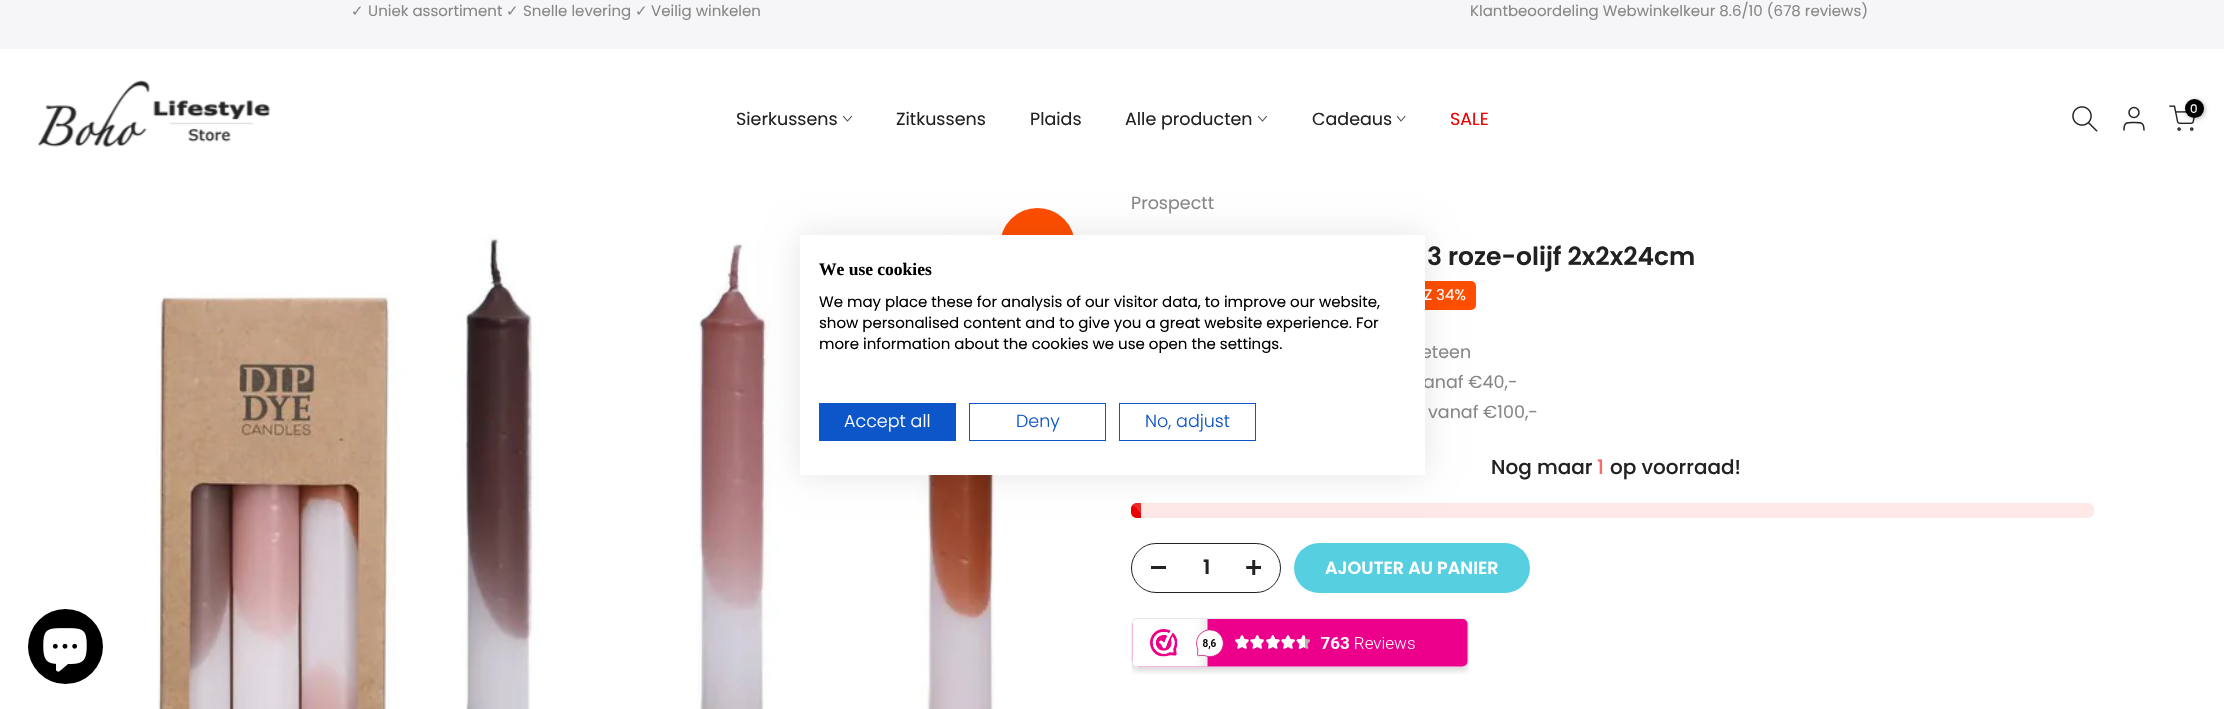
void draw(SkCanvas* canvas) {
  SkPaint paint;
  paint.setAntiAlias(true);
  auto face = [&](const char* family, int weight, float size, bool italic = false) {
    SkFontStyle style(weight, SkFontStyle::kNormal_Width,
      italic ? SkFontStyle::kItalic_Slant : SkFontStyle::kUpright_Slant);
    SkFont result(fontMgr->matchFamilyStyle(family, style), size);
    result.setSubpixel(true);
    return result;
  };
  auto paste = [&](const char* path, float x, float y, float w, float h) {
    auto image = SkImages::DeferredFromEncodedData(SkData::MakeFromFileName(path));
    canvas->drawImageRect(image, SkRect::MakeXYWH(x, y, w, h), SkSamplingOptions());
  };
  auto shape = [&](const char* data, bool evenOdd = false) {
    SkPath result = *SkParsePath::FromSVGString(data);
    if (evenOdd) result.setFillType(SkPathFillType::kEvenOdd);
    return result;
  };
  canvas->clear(0xffffffff);
  paint.setColor(0xfff6f6f8);
  canvas->drawRect(SkRect::MakeXYWH(0, 0, 2224, 49), paint);
  paste("img/1.png", 38, 80, 233, 67);
  paste("img/2.png", 2072, 106, 26, 26);
  paint.setStroke(true);
  paint.setStrokeWidth(1.5f);
  paint.setColor(0xff222222);
  canvas->drawCircle(2134, 112.5f, 5, paint);
  paint.setStrokeCap(SkPaint::kRound_Cap);
  paint.setStrokeJoin(SkPaint::kRound_Join);
  canvas->drawPath(shape("M2144 130C2144 122 2140.5 122.5 2134 122.5C2127 122.5 2124 122 2124 130"), paint);
  paste("img/3.png", 2169, 105, 26, 26);
  paint.setStroke(false);
  paint.setColor(0x4d000000);
  paint.setMaskFilter(SkMaskFilter::MakeBlur(kNormal_SkBlurStyle, 2));
  canvas->drawRoundRect(SkRect::MakeXYWH(2186, 100, 19, 19), 9.5f, 9.5f, paint);
  paint.setMaskFilter(nullptr);
  paint.setColor(0xff000000);
  canvas->drawCircle(2194.5f, 108.5f, 9.5f, paint);
  canvas->save();
  canvas->clipRect(SkRect::MakeXYWH(843, 116, 10, 6));
  paint.setStroke(true);
  paint.setStrokeWidth(1.1f);
  paint.setStrokeCap(SkPaint::kSquare_Cap);
  paint.setStrokeJoin(SkPaint::kMiter_Join);
  paint.setColor(0xff4e4e4e);
  canvas->drawPath(shape("M851.5 116.5L847.5 121L843.5 116.5"), paint);
  canvas->restore();
  canvas->save();
  canvas->clipRect(SkRect::MakeXYWH(1258, 116, 10, 6));
  canvas->drawPath(shape("M1266.5 116.5L1262.5 121L1258.5 116.5"), paint);
  canvas->restore();
  canvas->drawPath(shape("M1405 116.5L1401 121L1397.5 116.5"), paint);
  paste("img/4.png", 156, 234, 839, 475);
  paint.setStroke(false);
  paint.setColor(0xffff4e00);
  canvas->drawCircle(1037.5f, 245.5f, 37.5f, paint);
  canvas->drawRoundRect(SkRect::MakeXYWH(1328, 281, 148, 29), 5, 5, paint);
  paint.setColor(0xffffe8e8);
  canvas->drawRoundRect(SkRect::MakeXYWH(1131, 503, 963, 15), 6, 6, paint);
  paint.setColor(0xffec0101);
  canvas->drawPath(shape("M1137 503H1141V518H1137C1133.5 518 1131 515.5 1131 512V509C1131 505.5 1133.5 503 1137 503Z"), paint);
  {
    const SkColor colors[] = {0x26ffffff, 0x00ffffff, 0x00ffffff, 0x26ffffff, 0x26ffffff, 0x00ffffff, 0x00000000};
    const float stops[] = {0.25f, 0.25f, 0.5f, 0.5f, 0.75f, 0.75f, 1};
    const SkPoint ends[] = {{1131, 553}, {1181, 503}};
    paint.setShader(SkGradientShader::MakeLinear(ends, colors, stops, 7, SkTileMode::kClamp));
    paint.setAlpha(255);
  }
  canvas->drawPath(shape("M1137 503H1141V518H1137C1133.5 518 1131 515.5 1131 512V509C1131 505.5 1133.5 503 1137 503Z"), paint);
  paint.setStroke(true);
  paint.setStrokeWidth(1);
  paint.setStrokeCap(SkPaint::kButt_Cap);
  paint.setShader(nullptr);
  paint.setColor(0xff222222);
  canvas->drawRoundRect(SkRect::MakeXYWH(1131.5f, 543.5f, 149, 49), 24.5f, 24.5f, paint);
  paint.setStroke(false);
  canvas->drawRect(SkRect::MakeXYWH(1151, 566, 15, 3), paint);
  paste("img/5.png", 1246, 560, 15, 15);
  paint.setColor(0xff56cfe1);
  canvas->drawRoundRect(SkRect::MakeXYWH(1294, 543, 236, 50), 25, 25, paint);
  paste("img/6.png", 1131, 618, 338, 56);
  paint.setColor(0x1a000000);
  paint.setMaskFilter(SkMaskFilter::MakeBlur(kNormal_SkBlurStyle, 15));
  canvas->drawRect(SkRect::MakeXYWH(800, 235, 625, 240), paint);
  paint.setMaskFilter(nullptr);
  paint.setColor(0xff000000);
  canvas->drawCircle(65.5f, 646.5f, 37.5f, paint);
  paste("img/7.png", 43, 628, 44, 44);
  auto f0 = face("DejaVu Sans", 400, 15);
  paint.setColor(0xff878787);
  canvas->drawString("✓", 351, 16, f0, paint);
  auto f1 = face("Poppins", 400, 15);
  canvas->drawString("Uniek assortiment", 368, 16, f1, paint);
  canvas->drawString("✓", 506, 16, f0, paint);
  canvas->drawString("Snelle levering", 523, 16, f1, paint);
  canvas->drawString("✓", 635, 16, f0, paint);
  canvas->drawString("Veilig winkelen", 651, 16, f1, paint);
  canvas->drawString("Klantbeoordeling Webwinkelkeur 8.6/10 (678 reviews)", 1470, 16, f1, paint);
  auto f2 = face("Poppins", 400, 12);
  paint.setColor(0xffffffff);
  canvas->drawString("0", 2190, 113, f2, paint);
  auto f3 = face("Poppins", 400, 17.5f);
  paint.setColor(0xff222222);
  {
    const struct { const char* s; float x, y; } items[] = {
      {"Sierkussens", 736, 125},
      {"Zitkussens", 896, 125},
      {"Plaids", 1030, 125},
      {"Alle producten", 1125, 125},
      {"Cadeaus", 1312, 125},
    };
    for (auto [s, x, y] : items) {
      canvas->drawString(s, x, y, f3, paint);
    }
  }
  paint.setColor(0xffec0101);
  canvas->drawString("SALE", 1450, 125, f3, paint);
  paint.setColor(0xff878787);
  canvas->drawString("Prospectt", 1131, 209, f3, paint);
  auto f4 = face("Poppins", 600, 25);
  paint.setColor(0xff222222);
  canvas->drawString("3 roze-olijf 2x2x24cm", 1427, 265, f4, paint);
  paint.setColor(0xffffffff);
  canvas->drawString("Z 34%", 1424, 300, f1, paint);
  paint.setColor(0xff878787);
  {
    const struct { const char* s; float x, y; } items[] = {
      {"eteen", 1421, 358},
      {"anaf €40,-", 1423, 388},
      {"vanaf €100,-", 1428, 418},
    };
    for (auto [s, x, y] : items) {
      canvas->drawString(s, x, y, f3, paint);
    }
  }
  auto f5 = face("Poppins", 500, 20);
  paint.setColor(0xff222222);
  canvas->drawString("Nog maar", 1491, 474, f5, paint);
  paint.setColor(0xfff76b6a);
  canvas->drawString("1", 1597, 474, f5, paint);
  paint.setColor(0xff222222);
  canvas->drawString("op voorraad!", 1610, 474, f5, paint);
  auto f6 = face("Poppins", 600, 20);
  canvas->drawString("1", 1203, 574, f6, paint);
  auto f7 = face("Poppins", 600, 17.5f);
  paint.setColor(0xffffffff);
  canvas->drawString("AJOUTER AU PANIER", 1325, 574, f7, paint);
  canvas->drawRect(SkRect::MakeXYWH(800, 235, 625, 240), paint);
  auto f8 = face("Liberation Serif", 700, 17.5f);
  paint.setColor(0xff000000);
  canvas->drawString("We use cookies", 819, 275, f8, paint);
  {
    const struct { const char* s; float x, y; } items[] = {
      {"We may place these for analysis of our visitor data, to improve our website,", 819, 307},
      {"show personalised content and to give you a great website experience. For", 819, 328},
      {"more information about the cookies we use open the settings.", 819, 349},
    };
    for (auto [s, x, y] : items) {
      canvas->drawString(s, x, y, f1, paint);
    }
  }
  paint.setColor(0xff0d56c9);
  canvas->drawRect(SkRect::MakeXYWH(819, 403, 137, 38), paint);
  auto f9 = face("Poppins", 300, 17.5f);
  paint.setColor(0xffffffff);
  canvas->drawString("Accept all", 844, 427, f9, paint);
  paint.setStroke(true);
  paint.setColor(0xff0d56c9);
  canvas->drawRect(SkRect::MakeXYWH(969.5f, 403.5f, 136, 37), paint);
  paint.setStroke(false);
  canvas->drawString("Deny", 1016, 427, f9, paint);
  paint.setStroke(true);
  canvas->drawRect(SkRect::MakeXYWH(1119.5f, 403.5f, 136, 37), paint);
  paint.setStroke(false);
  canvas->drawString("No, adjust", 1145, 427, f9, paint);
}
